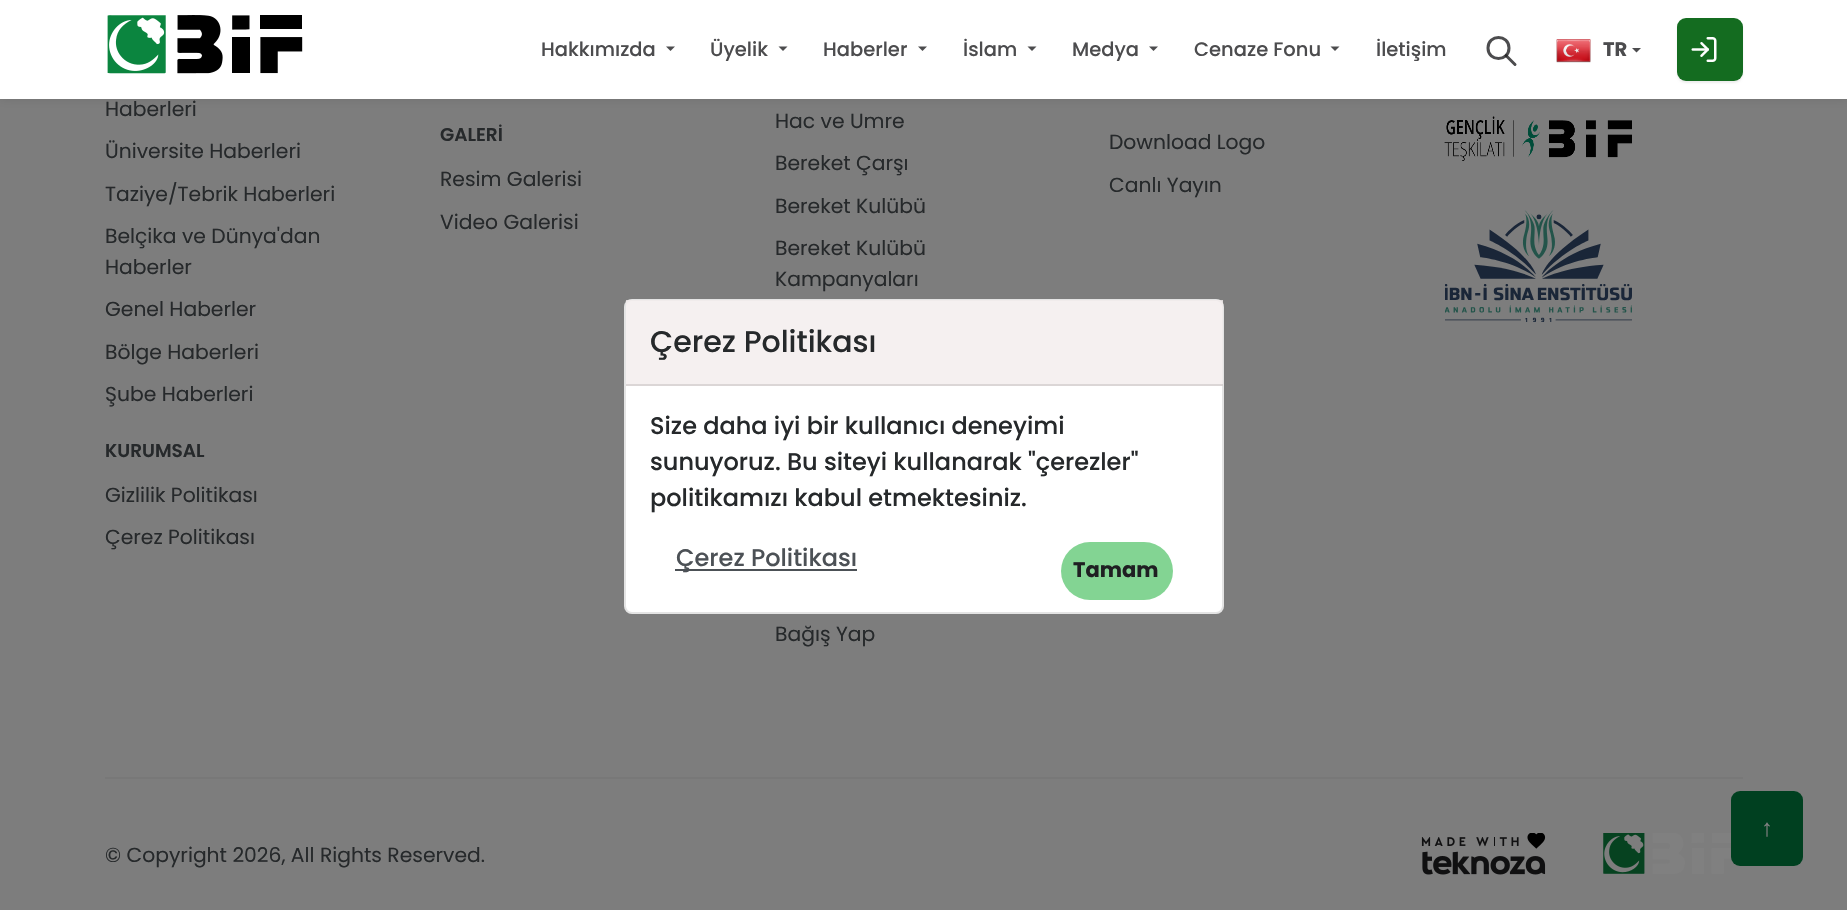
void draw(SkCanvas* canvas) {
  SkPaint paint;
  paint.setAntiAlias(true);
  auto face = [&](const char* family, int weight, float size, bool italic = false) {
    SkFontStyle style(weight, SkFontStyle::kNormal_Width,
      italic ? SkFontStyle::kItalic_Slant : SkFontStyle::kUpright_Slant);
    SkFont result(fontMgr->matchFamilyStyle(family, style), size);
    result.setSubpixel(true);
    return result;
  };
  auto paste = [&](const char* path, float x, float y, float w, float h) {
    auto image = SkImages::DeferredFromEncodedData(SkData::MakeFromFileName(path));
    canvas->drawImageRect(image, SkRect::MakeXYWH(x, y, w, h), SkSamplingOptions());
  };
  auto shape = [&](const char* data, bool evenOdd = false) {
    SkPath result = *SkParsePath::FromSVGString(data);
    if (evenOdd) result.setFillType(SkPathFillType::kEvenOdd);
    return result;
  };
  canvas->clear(0xff7d7d7d);
  paint.setColor(0x1a000000);
  paint.setMaskFilter(SkMaskFilter::MakeBlur(kNormal_SkBlurStyle, 5));
  canvas->drawRect(SkRect::MakeXYWH(0, 0, 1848, 99), paint);
  paint.setMaskFilter(nullptr);
  paint.setColor(0xffffffff);
  canvas->drawRect(SkRect::MakeXYWH(0, 0, 1847, 99), paint);
  paste("img/1.png", 107, 15, 196, 59);
  paint.setColor(0xff4c4c4e);
  canvas->drawPath(shape("M666 46.5H675L670.5 51Z"), paint);
  canvas->drawPath(shape("M778.5 46.5H787.5L783 51Z"), paint);
  canvas->drawPath(shape("M918 46.5H927L922.5 51Z"), paint);
  canvas->drawPath(shape("M1027.5 46.5H1036.5L1032 51Z"), paint);
  canvas->drawPath(shape("M1149 46.5H1158L1153.5 51Z"), paint);
  canvas->drawPath(shape("M1330.5 46.5H1339.5L1335 51Z"), paint);
  paint.setStroke(true);
  paint.setStrokeWidth(3);
  paint.setStrokeCap(SkPaint::kRound_Cap);
  paint.setStrokeJoin(SkPaint::kRound_Join);
  canvas->drawPath(shape("M1488 48C1488 62 1509 62 1509 48C1509 34 1488 34 1488 48"), paint);
  paint.setColor(0xcc1f1f22);
  canvas->drawPath(shape("M1515 64.5L1506 55.5"), paint);
  paste("img/2.png", 1556, 39, 35, 24);
  paint.setStroke(false);
  paint.setColor(0xff4c4c4e);
  canvas->drawPath(shape("M1632 48H1641L1636.5 52.5Z"), paint);
  paint.setColor(0xffeeeeee);
  paint.setMaskFilter(SkMaskFilter::MakeBlur(kNormal_SkBlurStyle, 1));
  canvas->drawRoundRect(SkRect::MakeXYWH(1677, 20, 66, 63), 9, 9, paint);
  paint.setMaskFilter(nullptr);
  paint.setColor(0xff146c20);
  canvas->drawRoundRect(SkRect::MakeXYWH(1677, 18, 66, 63), 9, 9, paint);
  paste("img/3.png", 1691, 37, 26, 25);
  paste("img/4.png", 1444, 116, 188, 45);
  paste("img/5.png", 1445, 210, 187, 112);
  paint.setColor(0xff787878);
  canvas->drawRect(SkRect::MakeXYWH(105, 777, 1638, 2), paint);
  paste("img/6.png", 1421, 833, 125, 42);
  paste("img/7.png", 1603, 833, 129, 41);
  paint.setColor(0xffffffff);
  canvas->drawRoundRect(SkRect::MakeXYWH(624, 299, 600, 315), 8, 8, paint);
  paint.setStroke(true);
  paint.setStrokeWidth(2);
  paint.setStrokeCap(SkPaint::kButt_Cap);
  paint.setStrokeJoin(SkPaint::kMiter_Join);
  paint.setColor(0x1f1f1f22);
  canvas->drawRoundRect(SkRect::MakeXYWH(625, 300, 598, 313), 7, 7, paint);
  paint.setStroke(false);
  {
    const struct { float x, y, w, h; SkColor color; } items[] = {
      {626, 300, 597, 86, 0xcff3ecec},
      {626, 384, 597, 2, 0x1f1f1f22},
      {675, 569, 182, 2, 0xff4c5156},
    };
    for (auto [x, y, w, h, color] : items) {
      paint.setColor(color);
      canvas->drawRect(SkRect::MakeXYWH(x, y, w, h), paint);
    }
  }
  paint.setColor(0xff83d493);
  canvas->drawRoundRect(SkRect::MakeXYWH(1061, 542, 112, 58), 29, 29, paint);
  paint.setColor(0xff004020);
  canvas->drawRoundRect(SkRect::MakeXYWH(1731, 791, 72, 75), 9, 9, paint);
  auto f0 = face("Poppins", 500, 19.5f);
  paint.setColor(0xff4c4c4e);
  {
    const struct { const char* s; float x, y; } items[] = {
      {"Hakkımızda", 541, 56},
      {"Üyelik", 710, 56},
      {"Haberler", 823, 56},
      {"İslam", 963, 56},
      {"Medya", 1072, 56},
      {"Cenaze Fonu", 1194, 56},
      {"İletişim", 1376, 56},
    };
    for (auto [s, x, y] : items) {
      canvas->drawString(s, x, y, f0, paint);
    }
  }
  auto f1 = face("Poppins", 700, 19.5f);
  canvas->drawString("TR", 1603, 56, f1, paint);
  auto f2 = face("Poppins", 400, 20.3f);
  paint.setColor(0xff26292b);
  {
    const struct { const char* s; float x, y; } items[] = {
      {"Haberleri", 105, 116},
      {"Üniversite Haberleri", 105, 158},
      {"Taziye/Tebrik Haberleri", 105, 201},
      {"Belçika ve Dünya'dan", 105, 243},
      {"Haberler", 105, 274},
      {"Genel Haberler", 105, 316},
      {"Bölge Haberleri", 105, 359},
      {"Şube Haberleri", 105, 401},
    };
    for (auto [s, x, y] : items) {
      canvas->drawString(s, x, y, f2, paint);
    }
  }
  auto f3 = face("Poppins", 600, 18.5f);
  canvas->drawString("KURUMSAL", 105, 457, f3, paint);
  canvas->drawString("Gizlilik Politikası", 105, 502, f2, paint);
  canvas->drawString("Çerez Politikası", 105, 544, f2, paint);
  canvas->drawString("GALERİ", 440, 141, f3, paint);
  {
    const struct { const char* s; float x, y; } items[] = {
      {"Resim Galerisi", 440, 186},
      {"Video Galerisi", 440, 229},
      {"Hac ve Umre", 775, 128},
      {"Bereket Çarşı", 775, 170},
      {"Bereket Kulübü", 775, 213},
      {"Bereket Kulübü", 775, 255},
      {"Kampanyaları", 775, 286},
      {"Bağış Yap", 775, 641},
      {"Download Logo", 1109, 149},
      {"Canlı Yayın", 1109, 192},
      {"© Copyright 2026, All Rights Reserved.", 105, 862},
    };
    for (auto [s, x, y] : items) {
      canvas->drawString(s, x, y, f2, paint);
    }
  }
  auto f4 = face("Poppins", 500, 30);
  canvas->drawString("Çerez Politikası", 650, 352, f4, paint);
  auto f5 = face("Poppins", 500, 24);
  {
    const struct { const char* s; float x, y; } items[] = {
      {"Size daha iyi bir kullanıcı deneyimi", 650, 434},
      {"sunuyoruz. Bu siteyi kullanarak \"çerezler\"", 650, 470},
      {"politikamızı kabul etmektesiniz.", 650, 506},
    };
    for (auto [s, x, y] : items) {
      canvas->drawString(s, x, y, f5, paint);
    }
  }
  paint.setColor(0xff4c5156);
  canvas->drawString("Çerez Politikası", 676, 566, f5, paint);
  auto f6 = face("Poppins", 700, 21);
  paint.setColor(0xff1f1f22);
  canvas->drawString("Tamam", 1073, 577, f6, paint);
  auto f7 = face("Liberation Sans", 400, 24);
  paint.setColor(0xff808080);
  canvas->drawString("↑", 1761, 836, f7, paint);
}
